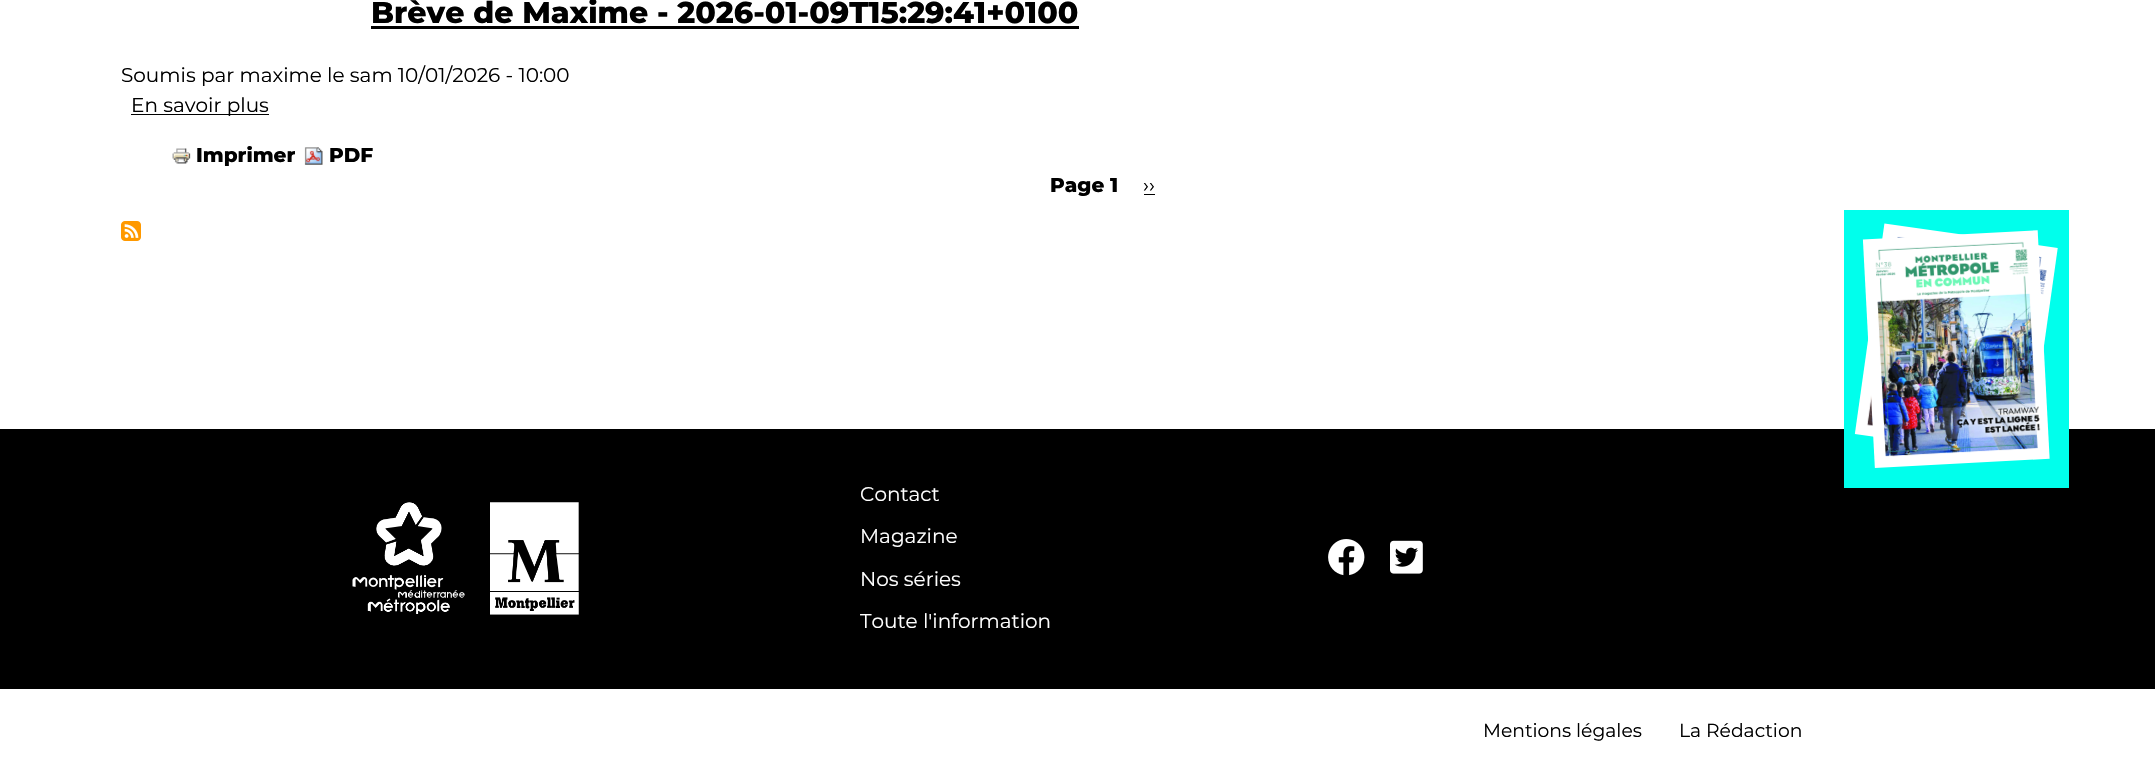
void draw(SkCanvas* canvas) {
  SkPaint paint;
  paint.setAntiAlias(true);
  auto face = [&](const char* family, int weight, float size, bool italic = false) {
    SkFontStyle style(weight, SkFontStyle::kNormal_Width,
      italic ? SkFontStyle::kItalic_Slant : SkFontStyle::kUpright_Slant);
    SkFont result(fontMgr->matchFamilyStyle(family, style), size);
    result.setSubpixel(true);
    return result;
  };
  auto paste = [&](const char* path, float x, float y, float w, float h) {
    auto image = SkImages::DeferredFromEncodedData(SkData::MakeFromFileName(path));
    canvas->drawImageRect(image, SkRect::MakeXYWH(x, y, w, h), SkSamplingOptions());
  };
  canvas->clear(0xffffffff);
  paint.setColor(0xff000000);
  canvas->drawRect(SkRect::MakeXYWH(371, 26, 708, 3), paint);
  canvas->drawRect(SkRect::MakeXYWH(131, 114, 138, 1), paint);
  paste("img/1.png", 172, 148, 19, 16);
  paste("img/2.png", 304, 147, 19, 18);
  canvas->drawRect(SkRect::MakeXYWH(1144, 194, 11, 1), paint);
  paste("img/3.png", 121, 221, 20, 20);
  canvas->drawRect(SkRect::MakeXYWH(0, 429, 2155, 260), paint);
  paste("img/4.png", 352, 502, 113, 112);
  paste("img/5.png", 490, 502, 89, 113);
  paint.setColor(0xff00ffec);
  canvas->drawRect(SkRect::MakeXYWH(1844, 210, 225, 278), paint);
  paste("img/7.png", 1854, 223, 204, 214);
  paste("img/6.png", 1862, 230, 188, 238);
  paste("img/8.png", 1328, 539, 37, 37);
  paste("img/9.png", 1390, 540, 33, 34);
  auto f0 = face("Montserrat", 800, 30);
  paint.setColor(0xff000000);
  canvas->drawString("Brève de Maxime - 2026-01-09T15:29:41+0100", 371, 23, f0, paint);
  auto f1 = face("Montserrat", 400, 20);
  canvas->drawString("Soumis par maxime le sam 10/01/2026 - 10:00", 121, 82, f1, paint);
  canvas->drawString("En savoir plus", 131, 112, f1, paint);
  auto f2 = face("Montserrat", 800, 20);
  {
    const struct { const char* s; float x, y; } items[] = {
      {"Imprimer", 196, 162},
      {"PDF", 329, 162},
      {"Page 1", 1050, 192},
    };
    for (auto [s, x, y] : items) {
      canvas->drawString(s, x, y, f2, paint);
    }
  }
  canvas->drawString("››", 1143, 192, f1, paint);
  paint.setColor(0xffffffff);
  {
    const struct { const char* s; float x, y; } items[] = {
      {"Contact", 860, 501},
      {"Magazine", 860, 543},
      {"Nos séries", 860, 586},
      {"Toute l'information", 860, 628},
    };
    for (auto [s, x, y] : items) {
      canvas->drawString(s, x, y, f1, paint);
    }
  }
  auto f3 = face("Montserrat", 400, 18.75f);
  paint.setColor(0xff000000);
  canvas->drawString("Mentions légales", 1483, 737, f3, paint);
  canvas->drawString("La Rédaction", 1679, 737, f3, paint);
}
